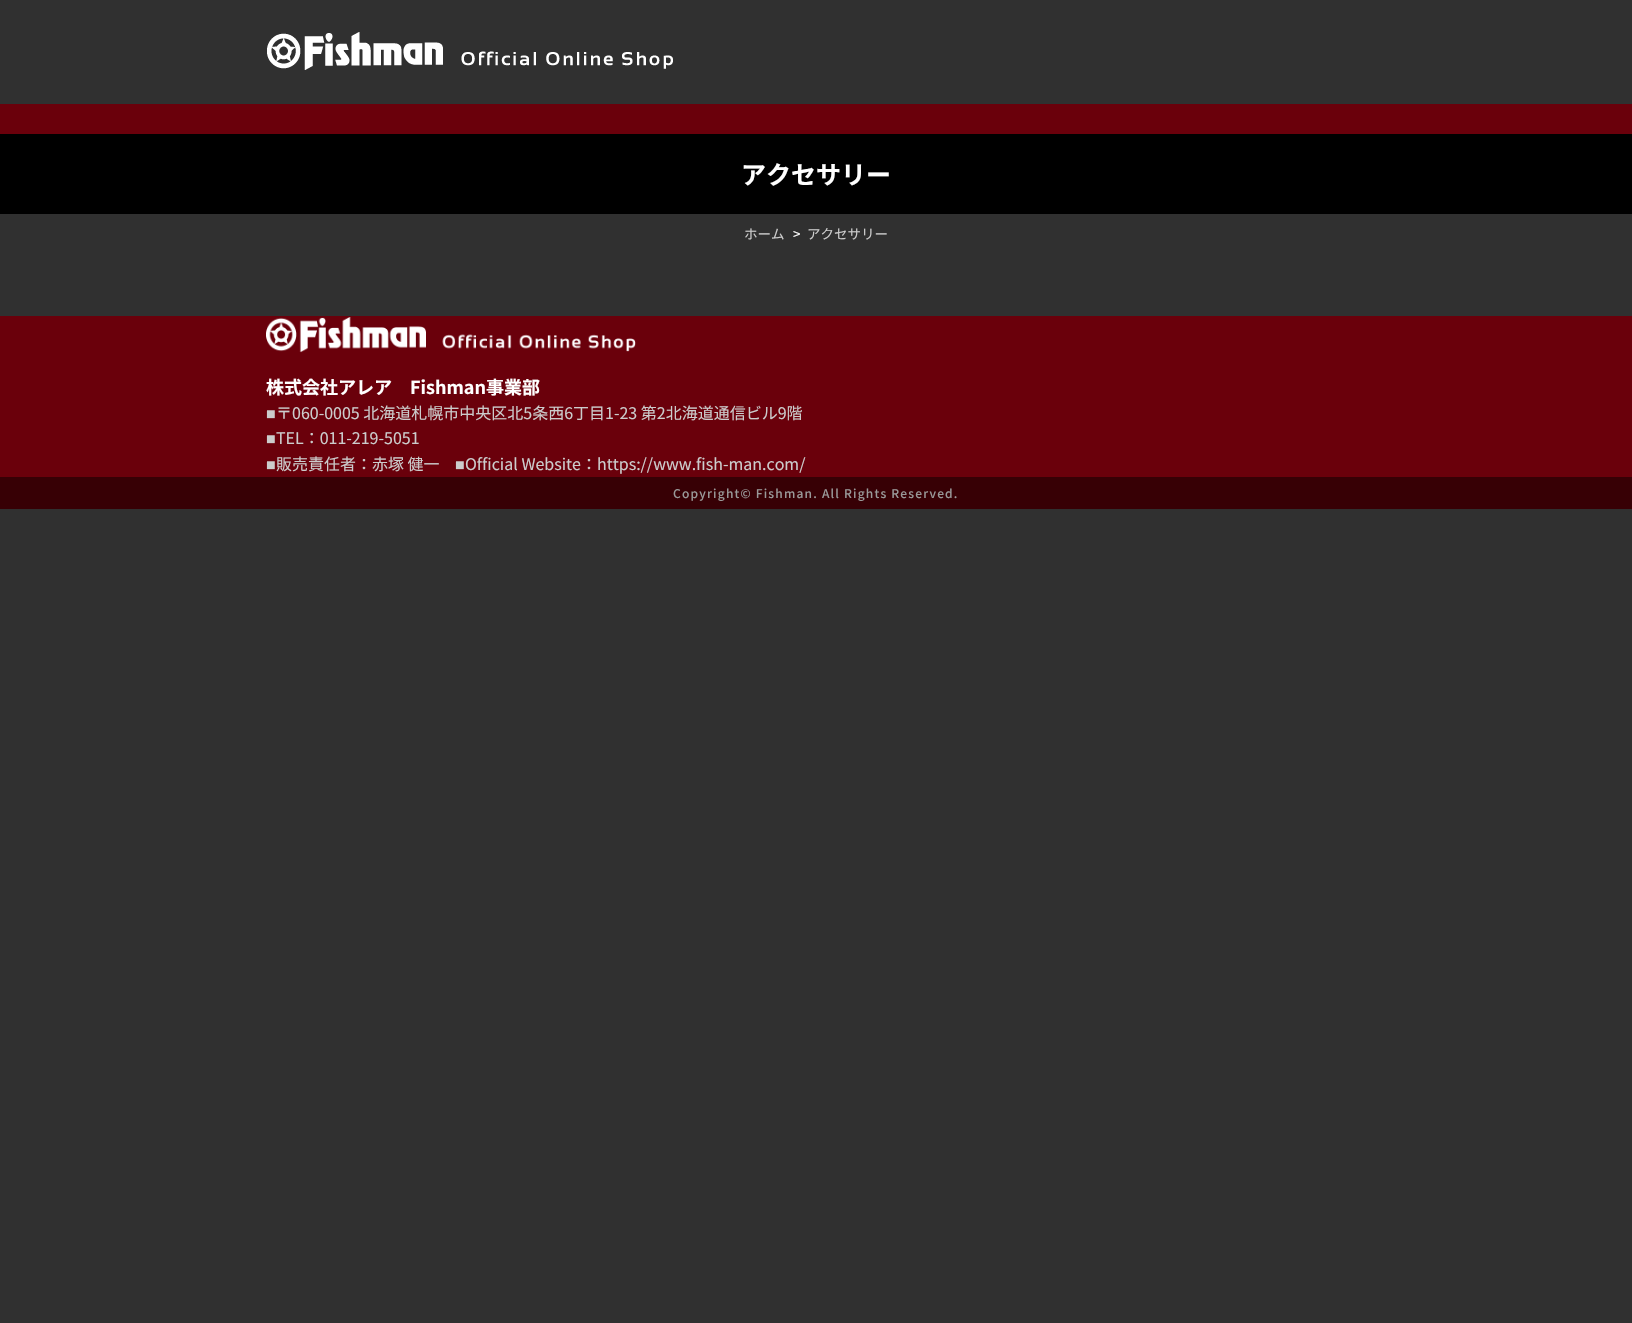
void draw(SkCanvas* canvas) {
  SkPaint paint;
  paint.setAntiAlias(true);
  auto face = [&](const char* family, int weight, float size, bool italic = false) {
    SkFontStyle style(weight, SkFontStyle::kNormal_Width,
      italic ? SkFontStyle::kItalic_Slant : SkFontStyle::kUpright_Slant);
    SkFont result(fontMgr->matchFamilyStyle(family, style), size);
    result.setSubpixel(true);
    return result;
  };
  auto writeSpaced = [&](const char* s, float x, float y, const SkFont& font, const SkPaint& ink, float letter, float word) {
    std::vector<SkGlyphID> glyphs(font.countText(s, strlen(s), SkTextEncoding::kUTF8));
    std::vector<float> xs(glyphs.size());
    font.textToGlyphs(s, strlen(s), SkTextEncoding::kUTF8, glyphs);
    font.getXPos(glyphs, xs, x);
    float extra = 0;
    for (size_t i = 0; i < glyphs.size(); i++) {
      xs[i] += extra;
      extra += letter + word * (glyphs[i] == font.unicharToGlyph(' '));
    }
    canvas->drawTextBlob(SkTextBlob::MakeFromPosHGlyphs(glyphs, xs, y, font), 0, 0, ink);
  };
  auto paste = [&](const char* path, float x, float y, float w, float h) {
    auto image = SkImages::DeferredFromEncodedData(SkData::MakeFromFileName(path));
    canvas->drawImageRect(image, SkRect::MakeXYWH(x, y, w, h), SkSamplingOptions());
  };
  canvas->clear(0xff303030);
  paint.setColor(0xff6a000b);
  canvas->drawRect(SkRect::MakeXYWH(0, 104, 1632, 30), paint);
  paste("img/1.png", 267, 32, 406, 38);
  paint.setColor(0xff000000);
  canvas->drawRect(SkRect::MakeXYWH(0, 134, 1632, 80), paint);
  paint.setColor(0xff6a000b);
  canvas->drawRect(SkRect::MakeXYWH(0, 316, 1632, 161), paint);
  paste("img/2.png", 266, 317, 370, 36);
  paint.setColor(0xff370005);
  canvas->drawRect(SkRect::MakeXYWH(0, 477, 1632, 32), paint);
  auto f0 = face("Noto Sans JP", 700, 25);
  paint.setColor(0xffffffff);
  canvas->drawString("アクセサリー", 741, 184, f0, paint);
  auto f1 = face("Noto Sans JP", 400, 13.5f);
  paint.setColor(0xffcccccc);
  canvas->drawString("ホーム", 744, 239, f1, paint);
  paint.setColor(0xffffffff);
  canvas->drawString(">", 793, 239, f1, paint);
  paint.setColor(0xffcccccc);
  canvas->drawString("アクセサリー", 807, 239, f1, paint);
  auto f2 = face("Noto Sans JP", 700, 18);
  paint.setColor(0xffffffff);
  canvas->drawString("株式会社アレア　Fishman事業部", 266, 394, f2, paint);
  auto f3 = face("Liberation Sans", 400, 16);
  paint.setColor(0xffcccccc);
  canvas->drawString("■", 266, 419, f3, paint);
  auto f4 = face("Noto Sans JP", 400, 16);
  canvas->drawString("〒060-0005 北海道札幌市中央区北5条西6丁目1-23 第2北海道通信ビル9階", 276, 419, f4, paint);
  canvas->drawString("■", 266, 444, f3, paint);
  canvas->drawString("TEL：011-219-5051", 276, 444, f4, paint);
  canvas->drawString("■", 266, 470, f3, paint);
  canvas->drawString("販売責任者：赤塚 健一", 276, 470, f4, paint);
  canvas->drawString("■", 455, 470, f3, paint);
  canvas->drawString("Official Website：https://www.fish-man.com/", 465, 470, f4, paint);
  auto f5 = face("Noto Sans JP", 500, 12);
  paint.setColor(0xff999999);
  writeSpaced("Copyright© Fishman. All Rights Reserved.", 673, 498, f5, paint, 1.2f, 0);
}
